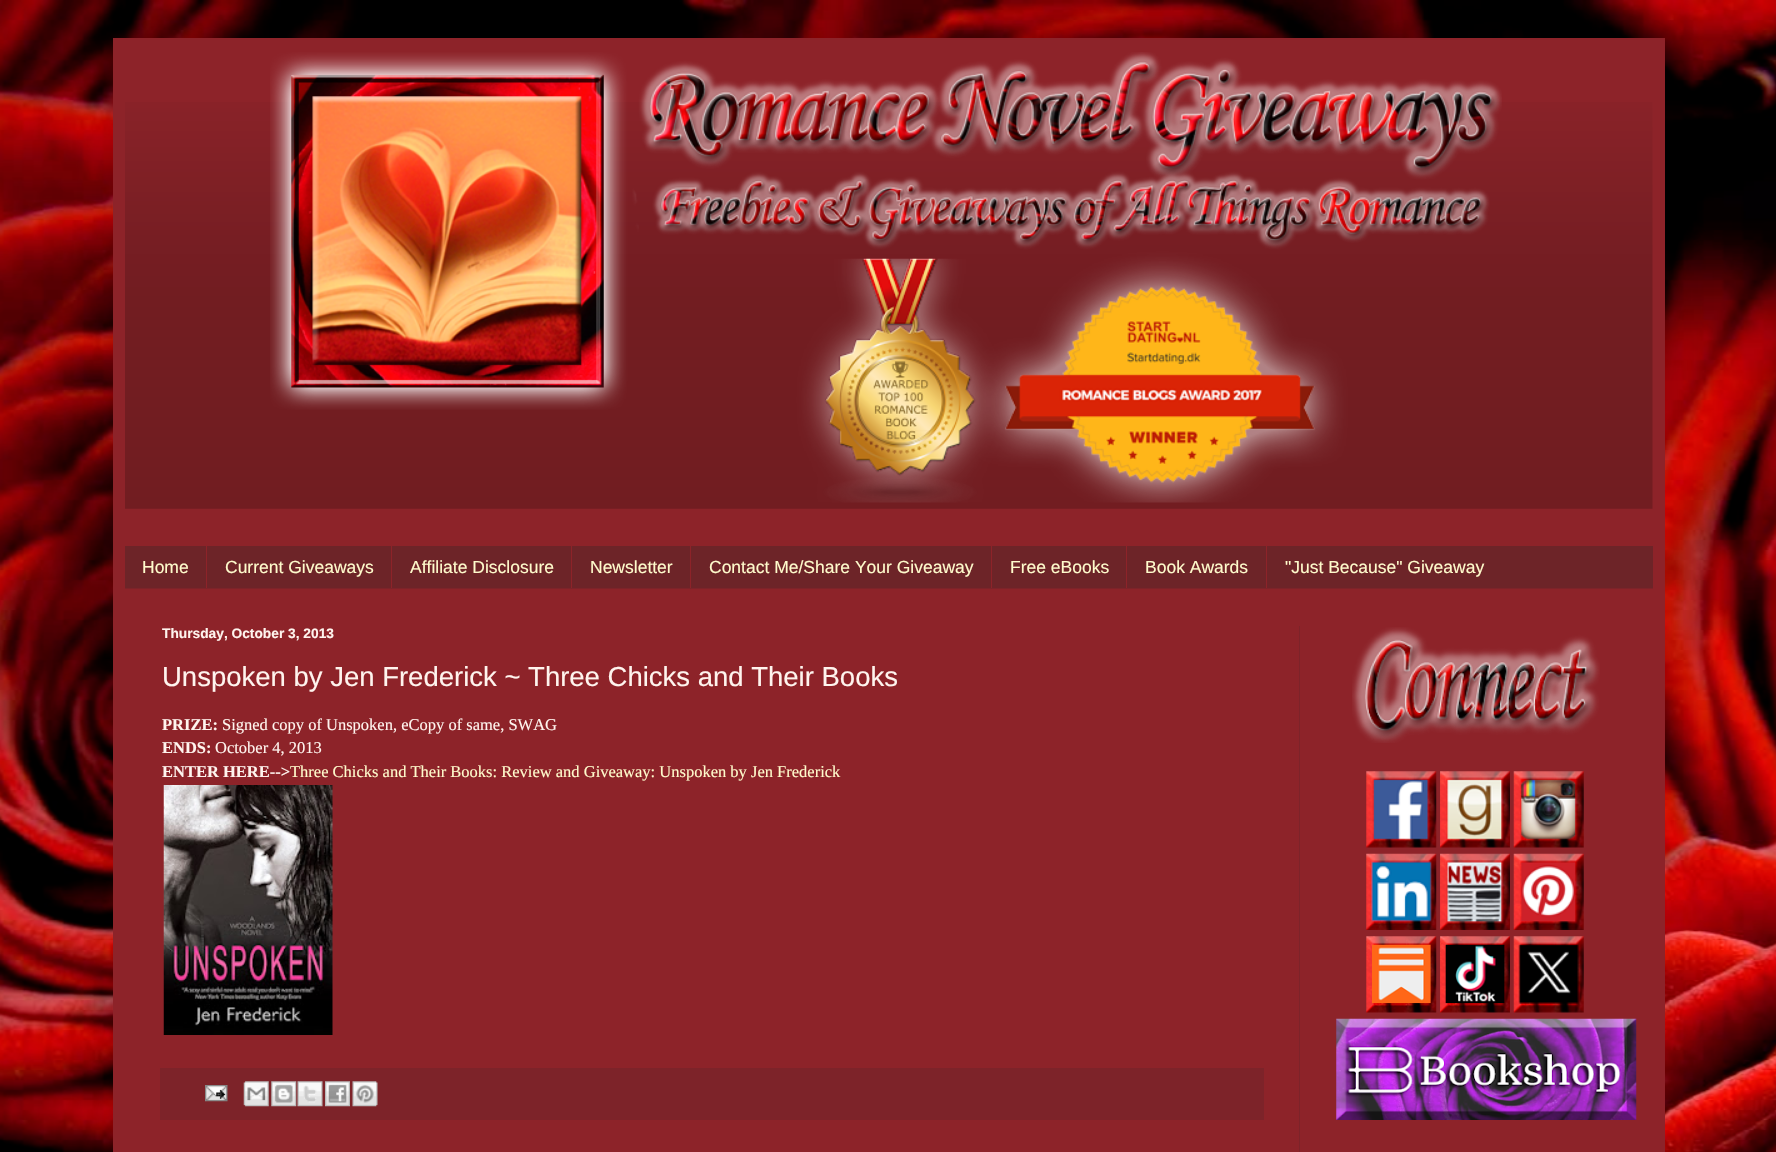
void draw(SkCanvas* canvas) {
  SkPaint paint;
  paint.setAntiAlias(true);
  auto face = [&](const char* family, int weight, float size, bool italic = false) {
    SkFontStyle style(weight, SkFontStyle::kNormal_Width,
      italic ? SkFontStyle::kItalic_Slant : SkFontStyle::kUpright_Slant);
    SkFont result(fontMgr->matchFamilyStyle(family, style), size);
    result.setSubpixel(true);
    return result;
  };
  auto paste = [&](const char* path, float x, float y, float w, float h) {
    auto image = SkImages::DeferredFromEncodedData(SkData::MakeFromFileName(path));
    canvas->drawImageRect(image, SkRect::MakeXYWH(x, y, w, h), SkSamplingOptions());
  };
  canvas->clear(0xffffffff);
  paste("img/1.png", 0, 0, 1776, 1152);
  paste("img/2.png", 50, 0, 1726, 500);
  paint.setColor(0x26000000);
  paint.setMaskFilter(SkMaskFilter::MakeBlur(kNormal_SkBlurStyle, 25));
  canvas->drawRect(SkRect::MakeXYWH(113, 38, 1552, 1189), paint);
  paint.setMaskFilter(nullptr);
  paint.setColor(0xff8d2329);
  canvas->drawRect(SkRect::MakeXYWH(113, 38, 1552, 1114), paint);
  paste("img/3.png", 125, 102, 1528, 407);
  paste("img/4.png", 270, 52, 1232, 451);
  {
    const struct { float x, y, w, h; SkColor color; } items[] = {
      {125, 546, 1528, 42, 0xff6d2428},
      {125, 588, 1528, 1, 0xff7d2329},
      {206, 546, 1, 42, 0xff8d2329},
      {391, 546, 1, 42, 0xff8d2329},
      {571, 546, 1, 42, 0xff8d2329},
      {690, 546, 1, 42, 0xff8d2329},
      {991, 546, 1, 42, 0xff8d2329},
      {1126, 546, 1, 42, 0xff8d2329},
      {1266, 546, 1, 42, 0xff8d2329},
    };
    for (auto [x, y, w, h, color] : items) {
      paint.setColor(color);
      canvas->drawRect(SkRect::MakeXYWH(x, y, w, h), paint);
    }
  }
  paste("img/5.png", 163, 785, 170, 250);
  paint.setColor(0xff7d2329);
  canvas->drawRect(SkRect::MakeXYWH(160, 1068, 1104, 52), paint);
  paste("img/6.png", 205, 1085, 23, 17);
  paste("img/7.png", 243, 1081, 26, 26);
  paste("img/8.png", 271, 1081, 26, 26);
  paste("img/9.png", 297, 1081, 26, 26);
  paste("img/10.png", 325, 1081, 25, 26);
  paste("img/11.png", 352, 1081, 26, 26);
  paste("img/12.png", 1352, 627, 248, 116);
  paste("img/13.png", 1366, 771, 71, 77);
  paste("img/14.png", 1440, 771, 70, 77);
  paste("img/15.png", 1513, 771, 71, 77);
  paste("img/16.png", 1366, 853, 71, 77);
  paste("img/17.png", 1440, 853, 70, 77);
  paste("img/18.png", 1513, 853, 71, 77);
  paste("img/19.png", 1366, 936, 71, 77);
  paste("img/20.png", 1440, 936, 70, 77);
  paste("img/21.png", 1513, 936, 71, 77);
  paste("img/22.png", 1336, 1018, 301, 102);
  canvas->drawRect(SkRect::MakeXYWH(1299, 626, 1, 526), paint);
  auto f0 = face("Liberation Sans", 400, 17.5f);
  paint.setColor(0xfffffbcc);
  {
    const struct { const char* s; float x, y; } items[] = {
      {"Home", 142, 573},
      {"Current Giveaways", 225, 573},
      {"Affiliate Disclosure", 410, 573},
      {"Newsletter", 590, 573},
      {"Contact Me/Share Your Giveaway", 709, 573},
      {"Free eBooks", 1010, 573},
      {"Book Awards", 1145, 573},
      {"\"Just Because\" Giveaway", 1285, 573},
    };
    for (auto [s, x, y] : items) {
      canvas->drawString(s, x, y, f0, paint);
    }
  }
  auto f1 = face("Liberation Sans", 700, 13.75f);
  paint.setColor(0xfffff4ee);
  canvas->drawString("Thursday, October 3, 2013", 162, 638, f1, paint);
  auto f2 = face("Liberation Sans", 400, 27.5f);
  canvas->drawString("Unspoken by Jen Frederick ~ Three Chicks and Their Books", 162, 686, f2, paint);
  auto f3 = face("Liberation Serif", 700, 16.5f);
  canvas->drawString("PRIZE:", 162, 730, f3, paint);
  auto f4 = face("Liberation Serif", 400, 16.5f);
  canvas->drawString("Signed copy of Unspoken, eCopy of same, SWAG", 222, 730, f4, paint);
  canvas->drawString("ENDS:", 162, 753, f3, paint);
  canvas->drawString("October 4, 2013", 215, 753, f4, paint);
  canvas->drawString("ENTER HERE-->", 162, 777, f3, paint);
  paint.setColor(0xfffffbcc);
  canvas->drawString("Three Chicks and Their Books: Review and Giveaway: Unspoken by Jen Frederick", 290, 777, f4, paint);
}
